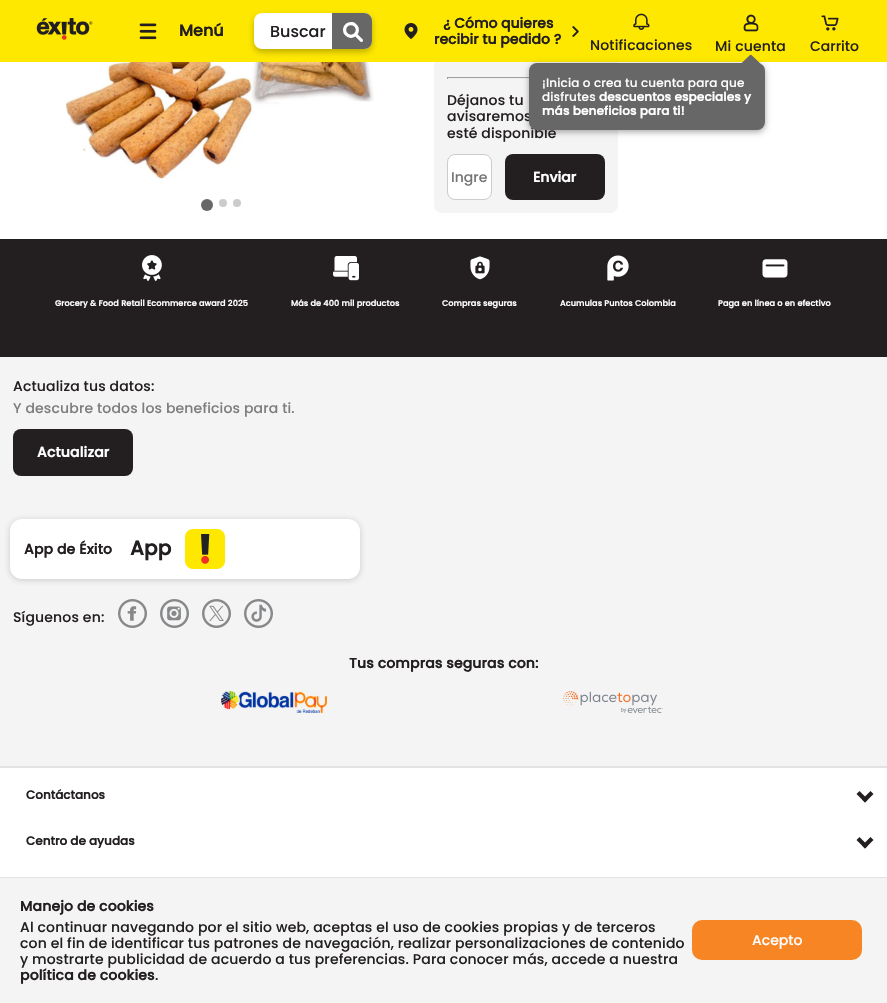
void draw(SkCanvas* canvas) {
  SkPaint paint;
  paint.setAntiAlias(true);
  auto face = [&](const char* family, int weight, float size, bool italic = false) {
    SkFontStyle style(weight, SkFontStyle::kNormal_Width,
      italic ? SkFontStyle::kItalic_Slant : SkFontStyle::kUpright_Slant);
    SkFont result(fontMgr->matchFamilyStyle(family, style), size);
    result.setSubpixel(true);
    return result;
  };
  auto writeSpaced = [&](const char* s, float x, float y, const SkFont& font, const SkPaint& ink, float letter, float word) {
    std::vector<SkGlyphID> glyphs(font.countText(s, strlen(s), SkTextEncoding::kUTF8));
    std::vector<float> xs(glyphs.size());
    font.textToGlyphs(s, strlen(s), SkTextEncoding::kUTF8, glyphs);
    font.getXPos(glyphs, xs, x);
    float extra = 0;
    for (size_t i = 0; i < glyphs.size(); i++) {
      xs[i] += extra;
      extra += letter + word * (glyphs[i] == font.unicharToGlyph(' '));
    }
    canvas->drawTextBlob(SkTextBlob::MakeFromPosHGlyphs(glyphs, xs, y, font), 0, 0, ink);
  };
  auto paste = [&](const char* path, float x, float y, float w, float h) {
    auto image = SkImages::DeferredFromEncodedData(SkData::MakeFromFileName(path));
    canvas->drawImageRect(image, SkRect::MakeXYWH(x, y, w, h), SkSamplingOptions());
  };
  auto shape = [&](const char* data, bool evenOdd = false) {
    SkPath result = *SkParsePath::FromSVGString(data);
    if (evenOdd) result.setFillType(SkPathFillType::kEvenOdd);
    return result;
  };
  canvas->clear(0xffffffff);
  paint.setColor(0xfff4f4f4);
  canvas->drawRoundRect(SkRect::MakeXYWH(434, -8, 184, 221), 8, 8, paint);
  paint.setColor(0xffffe800);
  canvas->drawRect(SkRect::MakeXYWH(0, 0, 887, 62), paint);
  paste("img/1.png", 36, 18, 57, 22);
  paste("img/2.png", 139, 23, 18, 17);
  paint.setColor(0xffffffff);
  canvas->drawRoundRect(SkRect::MakeXYWH(254, 13, 118, 36), 8, 8, paint);
  canvas->save();
  canvas->clipPath(shape("M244 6H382V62H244ZM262 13H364C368.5 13 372 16.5 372 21V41C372 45.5 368.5 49 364 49H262C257.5 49 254 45.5 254 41V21C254 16.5 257.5 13 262 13Z", true), true);
  paint.setColor(0x42000000);
  paint.setMaskFilter(SkMaskFilter::MakeBlur(kNormal_SkBlurStyle, 3));
  canvas->drawRoundRect(SkRect::MakeXYWH(254, 16, 118, 36), 8, 8, paint);
  paint.setMaskFilter(nullptr);
  canvas->restore();
  paint.setColor(0xff676767);
  canvas->drawPath(shape("M332 13H364C368.5 13 372 16.5 372 21V41C372 45.5 368.5 49 364 49H332Z"), paint);
  paste("img/3.png", 343, 22, 20, 20);
  paste("img/4.png", 404, 23, 14, 16);
  paste("img/5.png", 572, 26, 7, 11);
  paste("img/6.png", 633, 13, 17, 17);
  paste("img/7.png", 743, 14, 16, 18);
  paint.setColor(0xff9f9f9f);
  canvas->drawRect(SkRect::MakeXYWH(447, 77, 82, 1), paint);
  paint.setColor(0xffeeeeee);
  canvas->drawRect(SkRect::MakeXYWH(447, 78, 82, 1), paint);
  paint.setColor(0x57000000);
  paint.setMaskFilter(SkMaskFilter::MakeBlur(kNormal_SkBlurStyle, 3));
  canvas->drawRoundRect(SkRect::MakeXYWH(529, 65, 236, 67), 8, 8, paint);
  paint.setMaskFilter(nullptr);
  paste("img/8.png", 821, 15, 18, 16);
  paste("img/9.png", 65, 62, 309, 118);
  paint.setColor(0xff676767);
  canvas->drawCircle(207, 205, 6, paint);
  paint.setColor(0xffcccccc);
  canvas->drawCircle(223, 203, 4, paint);
  canvas->drawCircle(237, 203, 4, paint);
  paint.setColor(0xff9f9f9f);
  canvas->drawRect(SkRect::MakeXYWH(447, 77, 1, 2), paint);
  paint.setColor(0xffffffff);
  canvas->drawRoundRect(SkRect::MakeXYWH(447.5f, 154.5f, 44, 45), 7.5f, 7.5f, paint);
  paint.setStroke(true);
  paint.setStrokeWidth(1);
  paint.setColor(0xffcccccc);
  canvas->drawRoundRect(SkRect::MakeXYWH(447.5f, 154.5f, 44, 45), 7.5f, 7.5f, paint);
  paint.setStroke(false);
  paint.setColor(0xff231f20);
  canvas->drawRoundRect(SkRect::MakeXYWH(505, 154, 100, 46), 8, 8, paint);
  canvas->drawRect(SkRect::MakeXYWH(0, 239, 887, 118), paint);
  paste("img/10.png", 142, 255, 20, 26);
  paste("img/11.png", 333, 256, 26, 25);
  paste("img/12.png", 470, 256, 20, 24);
  paste("img/13.png", 607, 255, 22, 26);
  paste("img/14.png", 762, 259, 26, 19);
  paint.setColor(0xfff4f4f4);
  canvas->drawRect(SkRect::MakeXYWH(0, 357, 887, 409), paint);
  paint.setColor(0xff231f20);
  canvas->drawRoundRect(SkRect::MakeXYWH(13, 429, 120, 47), 8, 8, paint);
  paint.setColor(0x382e2e2e);
  paint.setMaskFilter(SkMaskFilter::MakeBlur(kNormal_SkBlurStyle, 3));
  canvas->drawRoundRect(SkRect::MakeXYWH(10, 520, 350, 60), 12, 12, paint);
  paint.setMaskFilter(nullptr);
  paint.setColor(0xffffffff);
  canvas->drawRoundRect(SkRect::MakeXYWH(10, 519, 350, 60), 12, 12, paint);
  paste("img/15.png", 185, 529, 40, 40);
  paste("img/16.png", 118, 599, 29, 29);
  paste("img/17.png", 160, 599, 29, 29);
  paste("img/18.png", 202, 599, 29, 29);
  paste("img/19.png", 244, 599, 29, 29);
  paste("img/20.png", 221, 691, 106, 22);
  paste("img/21.png", 563, 691, 100, 22);
  paint.setColor(0xffe3e3e3);
  canvas->drawRect(SkRect::MakeXYWH(0, 766, 887, 2), paint);
  paint.setColor(0xff231f20);
  canvas->drawPath(shape("M865 802.5L856.5 794L859.5 791L868 799.5Z"), paint);
  canvas->drawPath(shape("M865 802.5L862 799.5L870.5 791L873.5 794ZM865 848.5L856.5 840L859.5 837L868 845.5Z"), paint);
  canvas->drawPath(shape("M865 848.5L862 845.5L870.5 837L873.5 840Z"), paint);
  paint.setColor(0xfff4f4f4);
  canvas->drawRect(SkRect::MakeXYWH(0, 878, 887, 125), paint);
  paint.setColor(0xffe3e3e3);
  canvas->drawRect(SkRect::MakeXYWH(0, 877, 887, 1), paint);
  paint.setColor(0xfff78524);
  canvas->drawRoundRect(SkRect::MakeXYWH(692, 920, 170, 40), 10, 10, paint);
  auto f0 = face("Poppins", 700, 16);
  paint.setColor(0xff231f20);
  canvas->drawString("Menú", 179, 36, f0, paint);
  auto f1 = face("Poppins", 500, 16);
  canvas->drawString("Buscar", 270, 37, f1, paint);
  auto f2 = face("Poppins", 700, 14);
  canvas->drawString("¿ Cómo quieres", 443, 28, f2, paint);
  canvas->drawString("recibir tu pedido ?", 434, 44, f2, paint);
  auto f3 = face("Poppins", 500, 14);
  writeSpaced("Notificaciones", 590, 50, f3, paint, 0.15f, 0);
  writeSpaced("Mi cuenta", 715, 51, f3, paint, 0.15f, 0);
  canvas->drawString("Carrito", 810, 51, f3, paint);
  {
    const struct { const char* s; float x, y; } items[] = {
      {"Déjanos tu", 447, 105},
      {"avisaremos", 447, 121},
      {"esté disponible", 447, 138},
    };
    for (auto [s, x, y] : items) {
      writeSpaced(s, x, y, f3, paint, 0.15f, 0);
    }
  }
  paint.setColor(0xff676767);
  canvas->drawRoundRect(SkRect::MakeXYWH(529, 63, 236, 67), 8, 8, paint);
  auto f4 = face("Poppins", 500, 12);
  paint.setColor(0xffffffff);
  writeSpaced("¡Inicia o crea tu cuenta para que", 542, 87, f4, paint, 0.15f, 0);
  paint.setColor(0xff676767);
  canvas->drawPath(shape("M752 55.5L763.5 66.5C764.5 67.5 764.5 68.5 763.5 69.5L752 81C751.5 81.5 750 81.5 749.5 81L738 69.5C737.5 68.5 737.5 67.5 738 66.5L749.5 55.5C750 54.5 751.5 54.5 752 55.5Z"), paint);
  auto f5 = face("Poppins", 700, 12);
  paint.setColor(0xffffffff);
  writeSpaced("más beneficios para ti!", 542, 115, f5, paint, 0.15f, 0);
  writeSpaced("descuentos especiales y", 599, 101, f5, paint, 0.15f, 0);
  writeSpaced("disfrutes", 542, 101, f4, paint, 0.15f, 0);
  paint.setColor(0xff757575);
  canvas->drawString("Ingre", 451, 182, f3, paint);
  paint.setColor(0xffffffff);
  canvas->drawString("Enviar", 533, 182, f2, paint);
  auto f6 = face("Poppins", 700, 8);
  {
    const struct { const char* s; float x, y; } items[] = {
      {"Grocery & Food Retail Ecommerce award 2025", 55, 306},
      {"Más de 400 mil productos", 291, 306},
      {"Compras seguras", 442, 306},
      {"Acumulas Puntos Colombia", 560, 306},
      {"Paga en línea o en efectivo", 718, 306},
    };
    for (auto [s, x, y] : items) {
      writeSpaced(s, x, y, f6, paint, 0.15f, 0);
    }
  }
  paint.setColor(0xff231f20);
  writeSpaced("Actualiza tus datos:", 13, 391, f3, paint, 0.15f, 0);
  paint.setColor(0xff7d7d7d);
  writeSpaced("Y descubre todos los beneficios para ti.", 13, 413, f3, paint, 0.15f, 0);
  paint.setColor(0xffffffff);
  writeSpaced("Actualizar", 37, 457, f2, paint, 0.15f, 0);
  paint.setColor(0xff231f20);
  writeSpaced("App de Éxito", 24, 554, f2, paint, 0.15f, 0);
  auto f7 = face("Poppins", 700, 20);
  writeSpaced("App", 130, 555, f7, paint, 0.15f, 0);
  writeSpaced("Síguenos en:", 13, 622, f3, paint, 0.15f, 0);
  writeSpaced("Tus compras seguras con:", 349, 668, f2, paint, 0.15f, 0);
  canvas->drawString("Contáctanos", 26, 799, f5, paint);
  canvas->drawString("Centro de ayudas", 26, 845, f5, paint);
  writeSpaced("Manejo de cookies", 20, 911, f2, paint, 0.15f, 0);
  {
    const struct { const char* s; float x, y; } items[] = {
      {"Al continuar navegando por el sitio web, aceptas el uso de cookies propias y de terceros", 20, 932},
      {"con el fin de identificar tus patrones de navegación, realizar personalizaciones de contenido", 20, 948},
      {"y mostrarte publicidad de acuerdo a tus preferencias. Para conocer más, accede a nuestra", 20, 964},
    };
    for (auto [s, x, y] : items) {
      writeSpaced(s, x, y, f3, paint, 0.15f, 0);
    }
  }
  writeSpaced("política de cookies", 20, 980, f2, paint, 0.15f, 0);
  writeSpaced(".", 155, 980, f3, paint, 0.15f, 0);
  paint.setColor(0xffffffff);
  canvas->drawString("Acepto", 752, 945, f3, paint);
}
